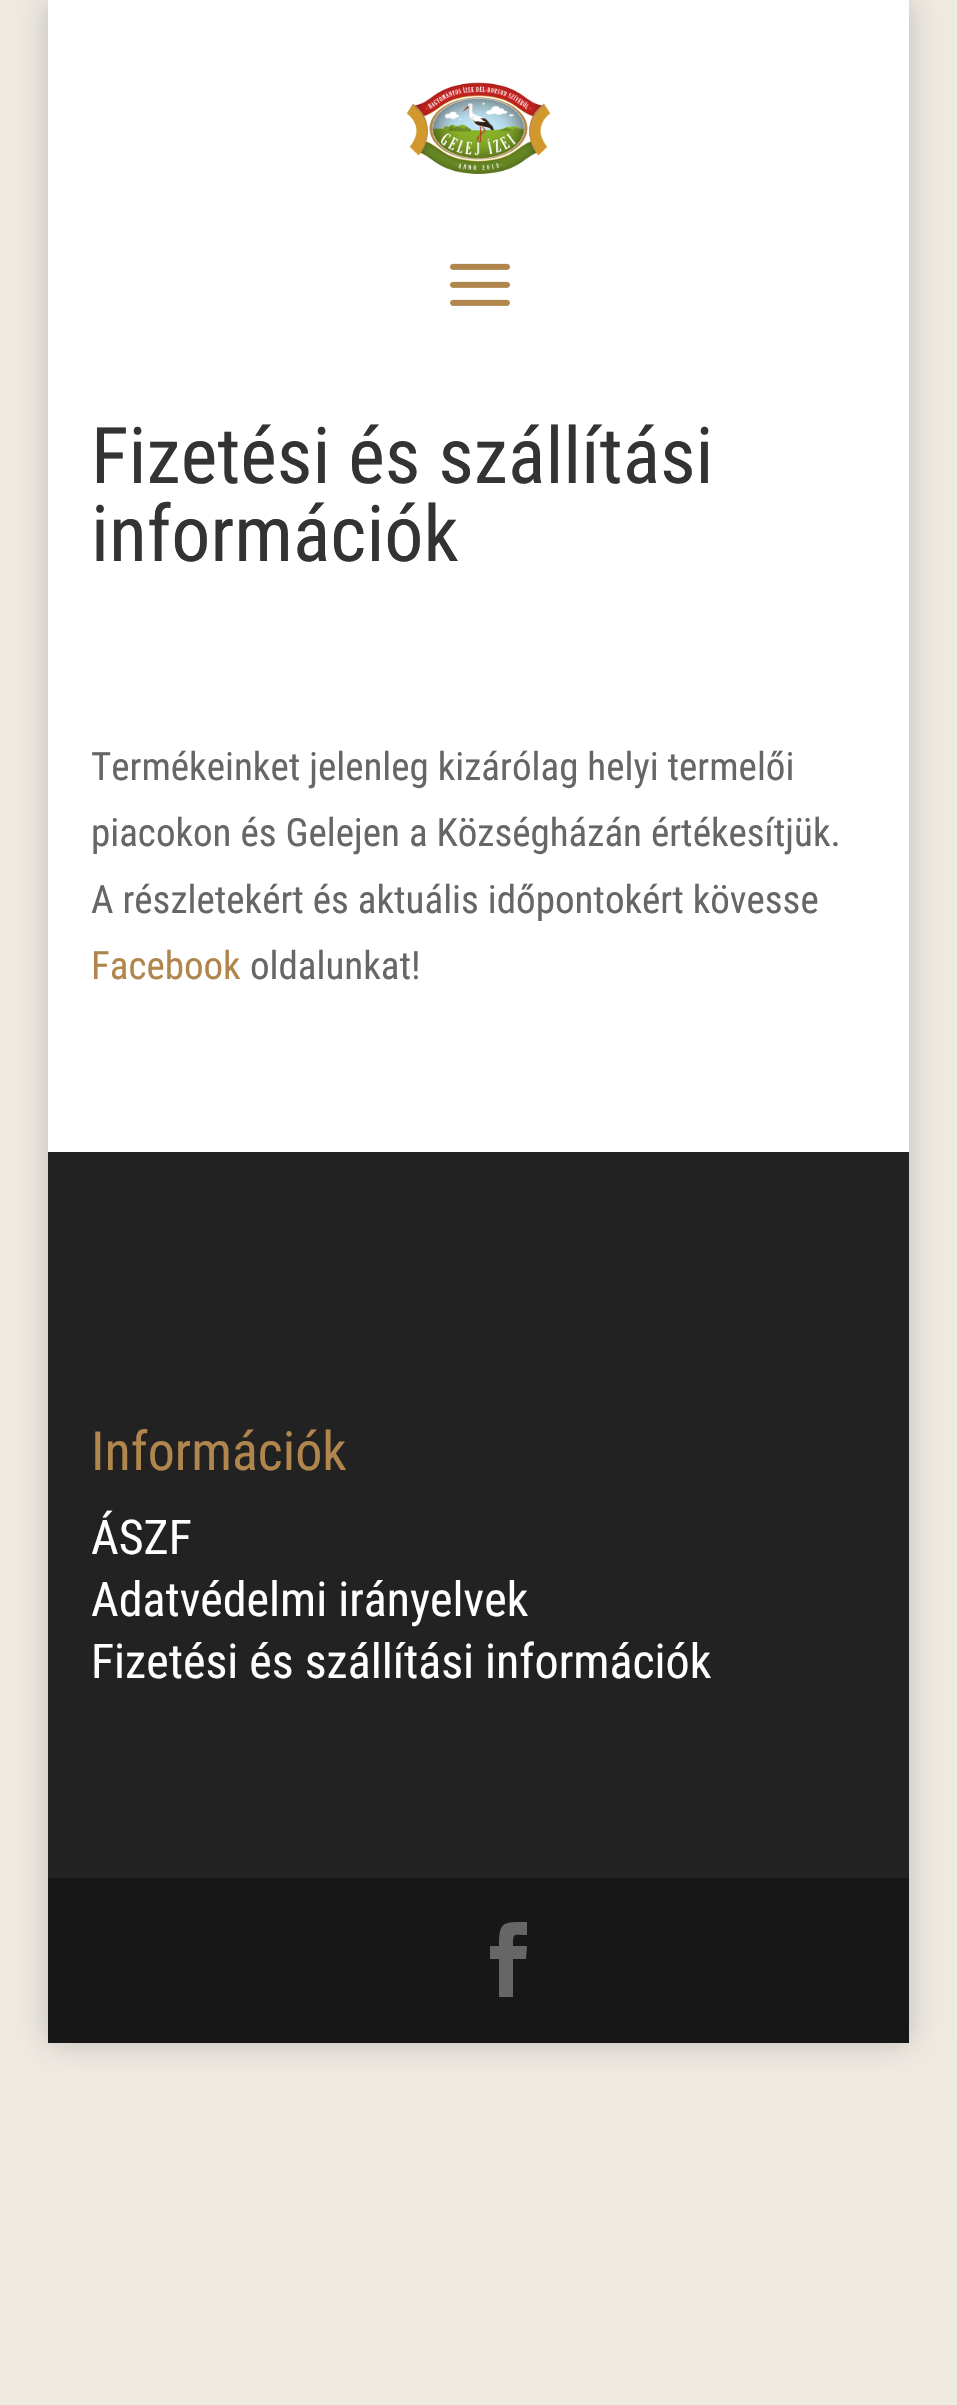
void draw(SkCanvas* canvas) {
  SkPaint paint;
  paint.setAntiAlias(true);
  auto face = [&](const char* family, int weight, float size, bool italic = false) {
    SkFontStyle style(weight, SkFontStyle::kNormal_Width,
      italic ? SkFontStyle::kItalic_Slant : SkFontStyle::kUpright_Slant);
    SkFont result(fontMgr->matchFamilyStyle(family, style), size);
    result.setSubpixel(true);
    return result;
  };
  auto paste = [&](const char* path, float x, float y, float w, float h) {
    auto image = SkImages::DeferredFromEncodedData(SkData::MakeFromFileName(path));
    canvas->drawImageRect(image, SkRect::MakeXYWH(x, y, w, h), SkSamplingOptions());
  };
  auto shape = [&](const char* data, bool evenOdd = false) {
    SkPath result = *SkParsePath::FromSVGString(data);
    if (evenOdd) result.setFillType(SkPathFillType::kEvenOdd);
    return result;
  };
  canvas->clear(0xffefebe3);
  paint.setColor(0x33000000);
  paint.setMaskFilter(SkMaskFilter::MakeBlur(kNormal_SkBlurStyle, 15));
  canvas->drawRect(SkRect::MakeXYWH(48, 0, 861, 2043), paint);
  paint.setMaskFilter(nullptr);
  paint.setColor(0xffffffff);
  canvas->drawRect(SkRect::MakeXYWH(48, 0, 861, 1152), paint);
  paste("img/1.png", 406, 82, 145, 92);
  paste("img/2.png", 450, 263, 60, 43);
  paint.setColor(0xff222222);
  canvas->drawRect(SkRect::MakeXYWH(48, 1152, 861, 726), paint);
  paint.setColor(0xff171717);
  canvas->drawRect(SkRect::MakeXYWH(48, 1878, 861, 165), paint);
  paint.setColor(0xff666666);
  canvas->drawPath(shape("M499 1997H513V1959H526L527 1946H513C513 1932 513 1935 527 1935V1922C503 1922 499 1921 499 1946H490V1959H499Z"), paint);
  auto f0 = face("Roboto Condensed", 400, 78);
  paint.setColor(0xff333333);
  canvas->drawString("Fizetési és szállítási", 91, 483, f0, paint);
  canvas->drawString("információk", 91, 561, f0, paint);
  auto f1 = face("Roboto Condensed", 400, 39);
  paint.setColor(0xff666666);
  {
    const struct { const char* s; float x, y; } items[] = {
      {"Termékeinket jelenleg kizárólag helyi termelői", 91, 780},
      {"piacokon és Gelejen a Községházán értékesítjük.", 91, 846},
      {"A részletekért és aktuális időpontokért kövesse", 91, 913},
    };
    for (auto [s, x, y] : items) {
      canvas->drawString(s, x, y, f1, paint);
    }
  }
  paint.setColor(0xffb0864d);
  canvas->drawString("Facebook", 91, 979, f1, paint);
  paint.setColor(0xff666666);
  canvas->drawString("oldalunkat!", 250, 979, f1, paint);
  auto f2 = face("Roboto Condensed", 400, 54);
  paint.setColor(0xffb0864d);
  canvas->drawString("Információk", 91, 1470, f2, paint);
  auto f3 = face("Roboto Condensed", 400, 48);
  paint.setColor(0xffffffff);
  {
    const struct { const char* s; float x, y; } items[] = {
      {"ÁSZF", 91, 1554},
      {"Adatvédelmi irányelvek", 91, 1616},
      {"Fizetési és szállítási információk", 91, 1678},
    };
    for (auto [s, x, y] : items) {
      canvas->drawString(s, x, y, f3, paint);
    }
  }
}
